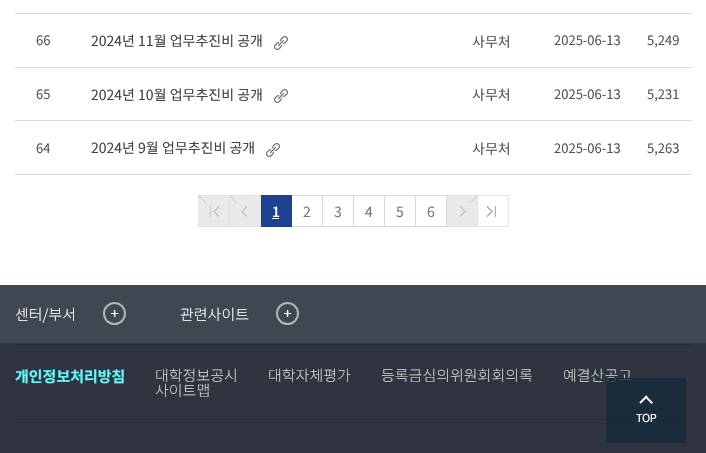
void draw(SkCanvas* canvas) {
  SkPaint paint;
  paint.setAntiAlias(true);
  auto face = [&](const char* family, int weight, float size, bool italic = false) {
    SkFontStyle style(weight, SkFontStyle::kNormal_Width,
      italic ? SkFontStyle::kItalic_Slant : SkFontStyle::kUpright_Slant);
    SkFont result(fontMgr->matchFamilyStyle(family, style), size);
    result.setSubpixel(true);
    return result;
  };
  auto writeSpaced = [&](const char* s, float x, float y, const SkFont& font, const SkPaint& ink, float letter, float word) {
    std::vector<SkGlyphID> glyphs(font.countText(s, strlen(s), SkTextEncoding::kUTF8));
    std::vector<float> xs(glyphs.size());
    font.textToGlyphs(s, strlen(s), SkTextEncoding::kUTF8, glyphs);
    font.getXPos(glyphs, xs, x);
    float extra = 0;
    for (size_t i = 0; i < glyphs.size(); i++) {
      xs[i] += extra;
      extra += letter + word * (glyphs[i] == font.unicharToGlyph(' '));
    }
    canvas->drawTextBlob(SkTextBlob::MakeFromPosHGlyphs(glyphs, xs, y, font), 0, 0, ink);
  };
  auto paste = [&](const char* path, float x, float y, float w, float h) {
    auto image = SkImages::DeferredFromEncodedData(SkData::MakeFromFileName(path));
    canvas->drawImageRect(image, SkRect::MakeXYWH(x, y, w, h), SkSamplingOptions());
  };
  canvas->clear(0xffffffff);
  paint.setColor(0xffdddddd);
  canvas->drawRect(SkRect::MakeXYWH(15, 13, 677, 1), paint);
  paste("img/1.png", 274, 36, 14, 14);
  canvas->drawRect(SkRect::MakeXYWH(15, 67, 677, 1), paint);
  paste("img/1.png", 274, 89, 14, 14);
  canvas->drawRect(SkRect::MakeXYWH(15, 120, 677, 1), paint);
  paste("img/1.png", 266, 143, 14, 14);
  canvas->drawRect(SkRect::MakeXYWH(15, 174, 677, 1), paint);
  paste("img/2.png", 198, 195, 31, 32);
  paste("img/3.png", 229, 195, 32, 32);
  {
    const struct { float x, y, w, h; SkColor color; } items[] = {
      {261, 195, 31, 32, 0xff1c4190},
      {272, 218, 7, 1, 0xffffffff},
      {292, 195, 155, 1, 0xffd8d8d8},
      {322, 195, 1, 32, 0xffd8d8d8},
      {292, 226, 31, 1, 0xffd8d8d8},
      {353, 195, 1, 32, 0xffd8d8d8},
      {323, 226, 31, 1, 0xffd8d8d8},
      {384, 195, 1, 32, 0xffd8d8d8},
      {354, 226, 31, 1, 0xffd8d8d8},
      {415, 195, 1, 32, 0xffd8d8d8},
      {385, 226, 31, 1, 0xffd8d8d8},
      {446, 195, 1, 32, 0xffd8d8d8},
      {416, 226, 31, 1, 0xffd8d8d8},
    };
    for (auto [x, y, w, h, color] : items) {
      paint.setColor(color);
      canvas->drawRect(SkRect::MakeXYWH(x, y, w, h), paint);
    }
  }
  paste("img/4.png", 447, 195, 31, 32);
  paste("img/5.png", 478, 195, 31, 32);
  {
    const struct { float x, y, w, h; SkColor color; } items[] = {
      {0, 344, 706, 109, 0xff2f3440},
      {0, 285, 706, 58, 0xff414653},
      {0, 343, 706, 1, 0xff303338},
    };
    for (auto [x, y, w, h, color] : items) {
      paint.setColor(color);
      canvas->drawRect(SkRect::MakeXYWH(x, y, w, h), paint);
    }
  }
  paste("img/6.png", 111, 310, 8, 7);
  paint.setStroke(true);
  paint.setStrokeWidth(2);
  paint.setColor(0xffb3b5ba);
  canvas->drawCircle(114.5f, 313.5f, 10.5f, paint);
  paste("img/6.png", 284, 310, 8, 7);
  canvas->drawCircle(287.5f, 313.5f, 10.5f, paint);
  paint.setStroke(false);
  paint.setColor(0xff282d39);
  canvas->drawRect(SkRect::MakeXYWH(15, 344, 676, 1), paint);
  canvas->drawRect(SkRect::MakeXYWH(15, 419, 676, 1), paint);
  auto f0 = face("Noto Sans KR", 400, 13);
  paint.setColor(0xff555555);
  canvas->drawString("66", 36, 45, f0, paint);
  auto f1 = face("Noto Sans KR", 400, 14);
  paint.setColor(0xff444444);
  canvas->drawString("2024년 11월 업무추진비 공개", 91, 46, f1, paint);
  paint.setColor(0xff555555);
  canvas->drawString("사무처", 472, 47, f1, paint);
  {
    const struct { const char* s; float x, y; } items[] = {
      {"2025-06-13", 554, 45},
      {"5,249", 647, 45},
      {"65", 36, 99},
    };
    for (auto [s, x, y] : items) {
      canvas->drawString(s, x, y, f0, paint);
    }
  }
  paint.setColor(0xff444444);
  canvas->drawString("2024년 10월 업무추진비 공개", 91, 100, f1, paint);
  paint.setColor(0xff555555);
  canvas->drawString("사무처", 472, 100, f1, paint);
  {
    const struct { const char* s; float x, y; } items[] = {
      {"2025-06-13", 554, 99},
      {"5,231", 647, 99},
      {"64", 36, 153},
    };
    for (auto [s, x, y] : items) {
      canvas->drawString(s, x, y, f0, paint);
    }
  }
  paint.setColor(0xff444444);
  canvas->drawString("2024년 9월 업무추진비 공개", 91, 153, f1, paint);
  paint.setColor(0xff555555);
  canvas->drawString("사무처", 472, 154, f1, paint);
  canvas->drawString("2025-06-13", 554, 153, f0, paint);
  canvas->drawString("5,263", 647, 153, f0, paint);
  auto f2 = face("Noto Sans KR", 500, 14);
  paint.setColor(0xffffffff);
  canvas->drawString("1", 272, 217, f2, paint);
  paint.setColor(0xff777777);
  {
    const struct { const char* s; float x, y; } items[] = {
      {"2", 303, 217},
      {"3", 334, 217},
      {"4", 365, 217},
      {"5", 396, 217},
      {"6", 427, 217},
    };
    for (auto [s, x, y] : items) {
      canvas->drawString(s, x, y, f1, paint);
    }
  }
  auto f3 = face("Noto Sans KR", 300, 15);
  paint.setColor(0xffffffff);
  canvas->drawString("센터/부서", 15, 320, f3, paint);
  canvas->drawString("관련사이트", 180, 320, f3, paint);
  auto f4 = face("Noto Sans KR", 700, 15);
  paint.setColor(0xff61f7f9);
  canvas->drawString("개인정보처리방침", 15, 382, f4, paint);
  paint.setColor(0xffd0d4d3);
  {
    const struct { const char* s; float x, y; } items[] = {
      {"대학정보공시", 155, 381},
      {"대학자체평가", 268, 381},
      {"등록금심의위원회회의록", 381, 381},
      {"예결산공고", 563, 381},
      {"사이트맵", 155, 396},
    };
    for (auto [s, x, y] : items) {
      canvas->drawString(s, x, y, f3, paint);
    }
  }
  paint.setColor(0xcc142939);
  canvas->drawRect(SkRect::MakeXYWH(606, 378, 80, 65), paint);
  paste("img/7.png", 639, 395, 14, 9);
  auto f5 = face("Noto Sans KR", 400, 11);
  paint.setColor(0xffffffff);
  writeSpaced("TOP", 636, 422, f5, paint, -0.5f, 0);
}
